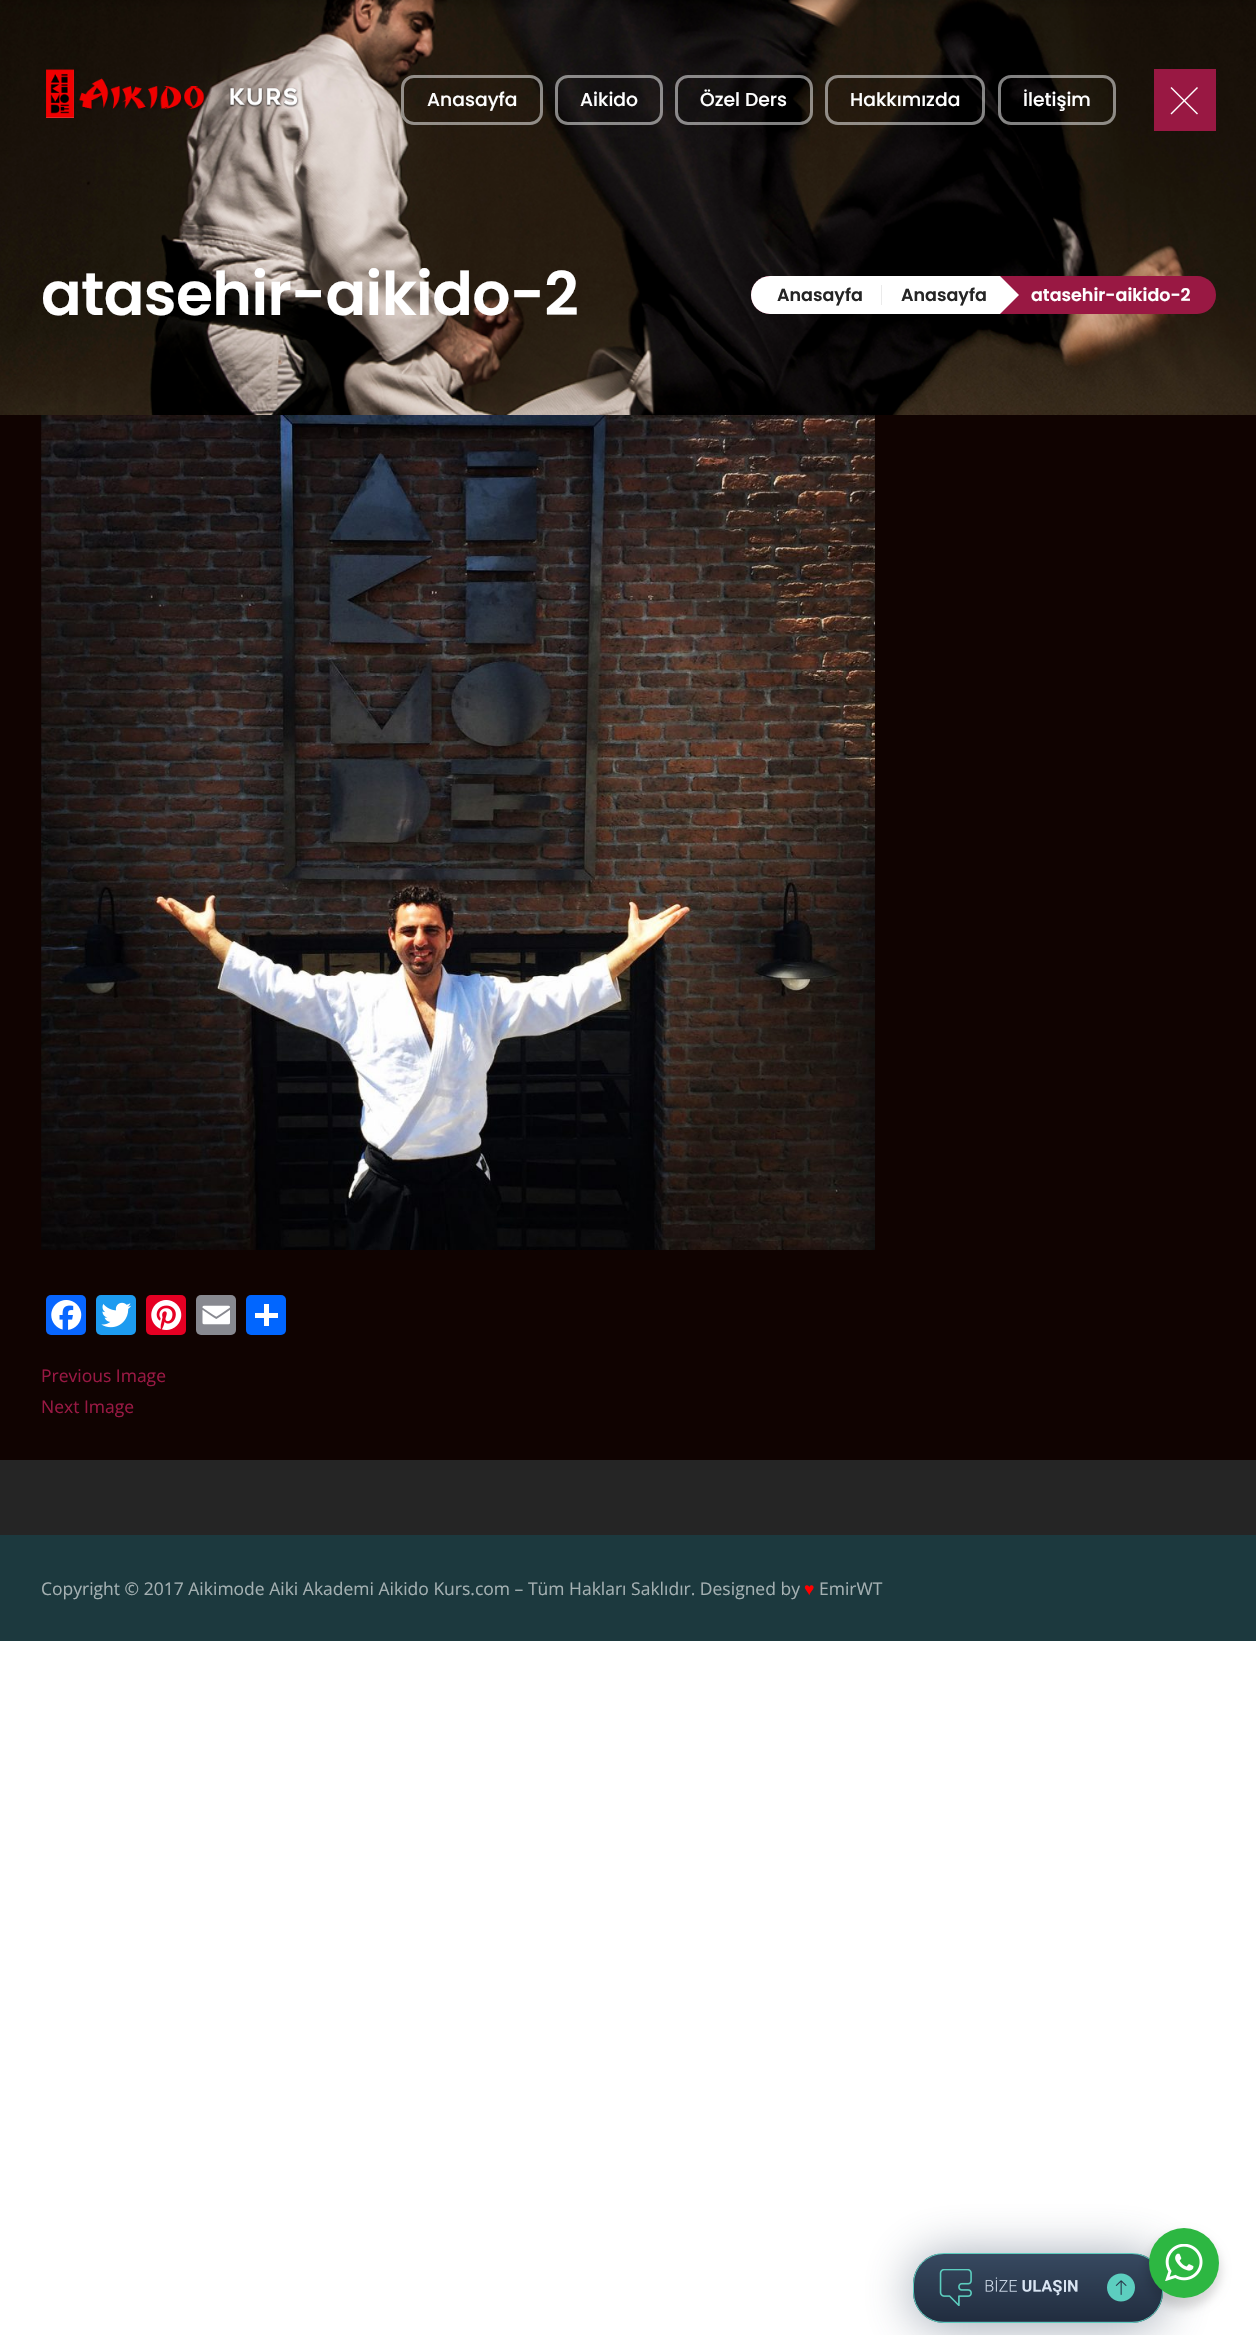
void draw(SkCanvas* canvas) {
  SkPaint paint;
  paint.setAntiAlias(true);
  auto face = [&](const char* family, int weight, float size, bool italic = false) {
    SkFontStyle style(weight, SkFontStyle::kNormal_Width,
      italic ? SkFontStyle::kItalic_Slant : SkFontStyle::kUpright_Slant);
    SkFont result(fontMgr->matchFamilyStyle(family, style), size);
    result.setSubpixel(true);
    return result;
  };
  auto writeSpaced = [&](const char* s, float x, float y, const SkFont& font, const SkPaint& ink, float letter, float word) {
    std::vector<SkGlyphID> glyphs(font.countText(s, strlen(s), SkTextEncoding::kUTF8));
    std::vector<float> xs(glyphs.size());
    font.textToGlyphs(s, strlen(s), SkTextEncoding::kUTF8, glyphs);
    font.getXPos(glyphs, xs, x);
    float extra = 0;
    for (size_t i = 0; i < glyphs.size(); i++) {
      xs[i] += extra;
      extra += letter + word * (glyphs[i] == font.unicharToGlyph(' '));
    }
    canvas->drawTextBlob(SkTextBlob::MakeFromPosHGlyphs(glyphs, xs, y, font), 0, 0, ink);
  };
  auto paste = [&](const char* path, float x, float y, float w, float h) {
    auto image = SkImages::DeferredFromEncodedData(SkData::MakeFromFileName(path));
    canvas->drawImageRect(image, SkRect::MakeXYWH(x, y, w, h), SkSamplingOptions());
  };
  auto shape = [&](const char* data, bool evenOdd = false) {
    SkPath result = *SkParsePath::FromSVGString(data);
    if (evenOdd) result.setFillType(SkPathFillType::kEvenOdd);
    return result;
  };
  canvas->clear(0xffffffff);
  paint.setColor(0xff100301);
  canvas->drawRect(SkRect::MakeXYWH(0, 415, 1256, 1045), paint);
  paste("img/1.png", 0, 0, 1256, 415);
  paint.setColor(0x33000000);
  paint.setMaskFilter(SkMaskFilter::MakeBlur(kNormal_SkBlurStyle, 6));
  canvas->drawRect(SkRect::MakeXYWH(0, -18, 1256, 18), paint);
  paint.setMaskFilter(nullptr);
  paste("img/2.png", 46, 69, 253, 49);
  paint.setStroke(true);
  paint.setStrokeWidth(3);
  paint.setColor(0x80ffffff);
  canvas->drawRoundRect(SkRect::MakeXYWH(402.5f, 76.5f, 139, 47), 11.5f, 11.5f, paint);
  canvas->drawRoundRect(SkRect::MakeXYWH(556.5f, 76.5f, 105, 47), 11.5f, 11.5f, paint);
  canvas->drawRoundRect(SkRect::MakeXYWH(676.5f, 76.5f, 135, 47), 11.5f, 11.5f, paint);
  canvas->drawRoundRect(SkRect::MakeXYWH(826.5f, 76.5f, 157, 47), 11.5f, 11.5f, paint);
  canvas->drawRoundRect(SkRect::MakeXYWH(999.5f, 76.5f, 115, 47), 11.5f, 11.5f, paint);
  paint.setStroke(false);
  paint.setColor(0xff991843);
  canvas->drawRect(SkRect::MakeXYWH(1154, 69, 62, 62), paint);
  paint.setColor(0xffffffff);
  canvas->drawPath(shape("M1171.5 87L1198 113.5L1197 114.5L1170.5 88Z"), paint);
  canvas->drawPath(shape("M1170.5 113.5L1197 87L1198 88L1171.5 114.5Z"), paint);
  paint.setColor(0xff991843);
  canvas->drawRoundRect(SkRect::MakeXYWH(751, 276, 465, 38), 19, 19, paint);
  paint.setColor(0xffffffff);
  canvas->drawPath(shape("M770 276H883V314H770C759.5 314 751 305.5 751 295C751 284.5 759.5 276 770 276Z"), paint);
  paint.setColor(0xffebebeb);
  canvas->drawRect(SkRect::MakeXYWH(881, 285, 1, 20), paint);
  paint.setColor(0xffffffff);
  canvas->drawRect(SkRect::MakeXYWH(883, 276, 117, 38), paint);
  canvas->drawPath(shape("M1000 314V276L1019 295Z"), paint);
  paste("img/3.png", 41, 415, 834, 835);
  paint.setColor(0xff0866ff);
  canvas->drawRoundRect(SkRect::MakeXYWH(46, 1295, 40, 40), 5, 5, paint);
  paste("img/4.png", 51, 1300, 31, 30);
  paint.setColor(0xff1d9bf0);
  canvas->drawRoundRect(SkRect::MakeXYWH(96, 1295, 40, 40), 5, 5, paint);
  paste("img/5.png", 101, 1302, 31, 26);
  paint.setColor(0xffe60023);
  canvas->drawRoundRect(SkRect::MakeXYWH(146, 1295, 40, 40), 5, 5, paint);
  paste("img/6.png", 151, 1300, 31, 30);
  paint.setColor(0xff888990);
  canvas->drawRoundRect(SkRect::MakeXYWH(196, 1295, 40, 40), 5, 5, paint);
  paste("img/7.png", 202, 1305, 28, 20);
  paint.setColor(0xff0166ff);
  canvas->drawRoundRect(SkRect::MakeXYWH(246, 1295, 40, 40), 5, 5, paint);
  {
    const struct { float x, y, w, h; SkColor color; } items[] = {
      {264, 1304, 5, 22, 0xffffffff},
      {255, 1313, 23, 5, 0xffffffff},
      {0, 1460, 1256, 75, 0xff252525},
      {0, 1535, 1256, 106, 0xff1c393e},
    };
    for (auto [x, y, w, h, color] : items) {
      paint.setColor(color);
      canvas->drawRect(SkRect::MakeXYWH(x, y, w, h), paint);
    }
  }
  paint.setColor(0x8036485f);
  paint.setMaskFilter(SkMaskFilter::MakeBlur(kNormal_SkBlurStyle, 25));
  canvas->drawRoundRect(SkRect::MakeXYWH(913, 2256, 250, 70), 31, 31, paint);
  paint.setMaskFilter(nullptr);
  canvas->save();
  canvas->clipPath(shape("M944 2253H1132C1149 2253 1163 2267 1163 2284V2292C1163 2309 1149 2323 1132 2323H944C927 2323 913 2309 913 2292V2284C913 2267 927 2253 944 2253Z"), true);
  {
    const SkColor colors[] = {0xff374960, 0xff212d3f};
    const float stops[] = {0, 1};
    const SkPoint ends[] = {{1038, 2254}, {1038, 2321}};
    paint.setShader(SkGradientShader::MakeLinear(ends, colors, stops, 2, SkTileMode::kClamp));
    paint.setAlpha(255);
  }
  canvas->drawRect(SkRect::MakeXYWH(913, 2254, 250, 67), paint);
  {
    const SkColor colors[] = {0xff374960, 0xff212d3f};
    const float stops[] = {0, 1};
    const SkPoint ends[] = {{1038, 2321}, {1038, 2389}};
    paint.setShader(SkGradientShader::MakeLinear(ends, colors, stops, 2, SkTileMode::kClamp));
    paint.setAlpha(255);
  }
  canvas->drawRect(SkRect::MakeXYWH(933, 2321, 210, 2), paint);
  canvas->restore();
  paint.setStroke(true);
  paint.setStrokeWidth(1);
  paint.setShader(nullptr);
  paint.setColor(0xff5ccebf);
  canvas->drawRoundRect(SkRect::MakeXYWH(913.5f, 2253.5f, 249, 69), 30.5f, 30.5f, paint);
  paste("img/8.png", 939, 2269, 196, 37);
  paint.setStroke(false);
  paint.setColor(0x24000000);
  paint.setMaskFilter(SkMaskFilter::MakeBlur(kNormal_SkBlurStyle, 5));
  canvas->drawRoundRect(SkRect::MakeXYWH(1146, 2233, 75, 75), 37.5f, 37.5f, paint);
  paint.setMaskFilter(nullptr);
  paint.setColor(0xff2db742);
  canvas->drawCircle(1184, 2263, 35, paint);
  paste("img/9.png", 1165, 2244, 38, 37);
  auto f0 = face("Poppins", 500, 18.75f);
  paint.setColor(0xffffffff);
  {
    const struct { const char* s; float x, y; } items[] = {
      {"Anasayfa", 427, 106},
      {"Aikido", 580, 106},
      {"Özel Ders", 700, 106},
      {"Hakkımızda", 850, 106},
      {"İletişim", 1023, 106},
    };
    for (auto [s, x, y] : items) {
      canvas->drawString(s, x, y, f0, paint);
    }
  }
  auto f1 = face("Poppins", 600, 60);
  writeSpaced("atasehir-aikido-2", 41, 315, f1, paint, -0.6f, 0);
  auto f2 = face("Poppins", 600, 17.5f);
  paint.setColor(0xff252525);
  canvas->drawString("Anasayfa", 777, 301, f2, paint);
  canvas->drawString("Anasayfa", 901, 301, f2, paint);
  paint.setColor(0xffffffff);
  canvas->drawString("atasehir-aikido-2", 1031, 301, f2, paint);
  auto f3 = face("Open Sans", 400, 17.5f);
  paint.setColor(0xff991843);
  canvas->drawString("Previous Image", 41, 1382, f3, paint);
  canvas->drawString("Next Image", 41, 1413, f3, paint);
  paint.setColor(0xffa4b0b2);
  canvas->drawString("Copyright © 2017 Aikimode Aiki Akademi Aikido Kurs.com – Tüm Hakları Saklıdır. Designed by", 41, 1595, f3, paint);
  auto f4 = face("Liberation Serif", 400, 17.5f);
  paint.setColor(0xffff0000);
  canvas->drawString("♥", 804, 1595, f4, paint);
  paint.setColor(0xffa4b0b2);
  canvas->drawString("EmirWT", 819, 1595, f3, paint);
}
